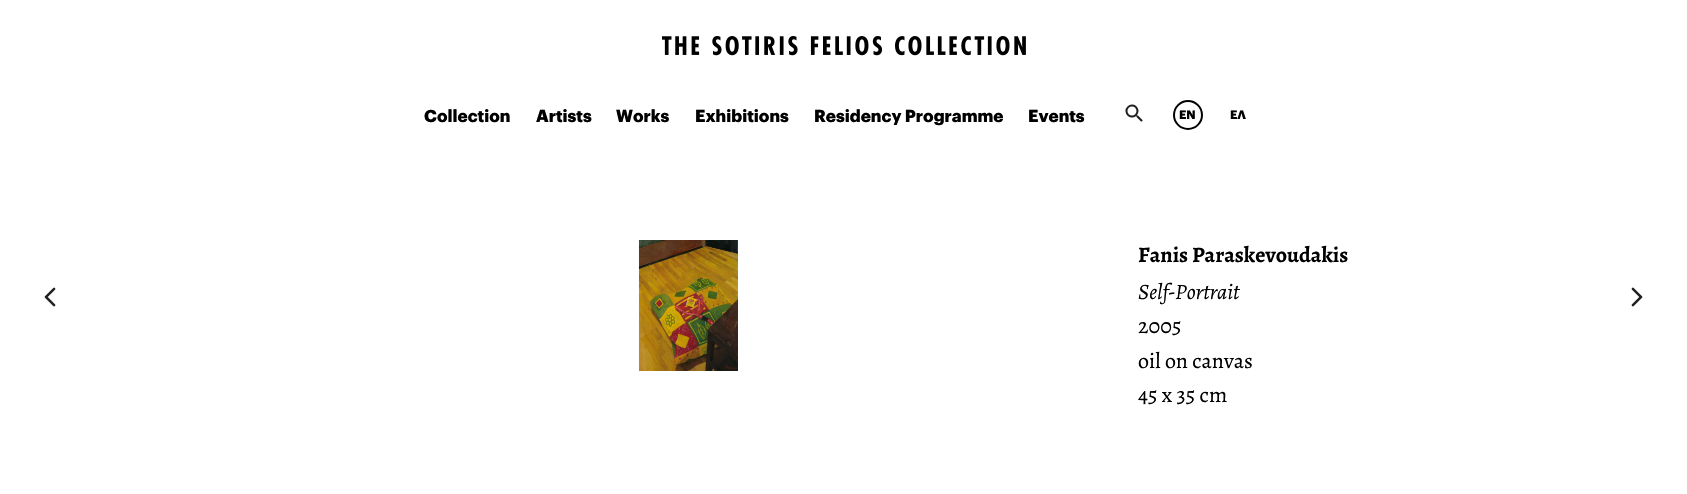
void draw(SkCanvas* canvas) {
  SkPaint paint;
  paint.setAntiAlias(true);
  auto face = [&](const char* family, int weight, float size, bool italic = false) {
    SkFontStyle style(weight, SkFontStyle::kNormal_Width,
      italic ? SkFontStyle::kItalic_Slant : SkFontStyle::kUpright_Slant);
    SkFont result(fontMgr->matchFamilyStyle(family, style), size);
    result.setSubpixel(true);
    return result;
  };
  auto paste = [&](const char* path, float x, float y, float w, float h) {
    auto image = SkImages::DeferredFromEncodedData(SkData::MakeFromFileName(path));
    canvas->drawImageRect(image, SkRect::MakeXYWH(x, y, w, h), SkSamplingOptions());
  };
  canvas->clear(0xffffffff);
  paste("img/1.png", 662, 36, 364, 20);
  paste("img/2.png", 1125, 104, 18, 18);
  paint.setStroke(true);
  paint.setStrokeWidth(2);
  paint.setColor(0xff000000);
  canvas->drawCircle(1188, 115, 14, paint);
  paste("img/3.png", 638, 240, 100, 131);
  paste("img/4.png", 44, 287, 12, 20);
  paste("img/5.png", 1631, 287, 12, 20);
  auto f0 = face("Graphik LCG", 700, 17);
  paint.setStroke(false);
  {
    const struct { const char* s; float x, y; } items[] = {
      {"Collection", 424, 122},
      {"Artists", 536, 122},
      {"Works", 616, 122},
      {"Exhibitions", 695, 122},
      {"Residency Programme", 814, 122},
      {"Events", 1028, 122},
    };
    for (auto [s, x, y] : items) {
      canvas->drawString(s, x, y, f0, paint);
    }
  }
  auto f1 = face("Graphik LCG", 700, 12);
  canvas->drawString("EN", 1179, 119, f1, paint);
  canvas->drawString("ΕΛ", 1230, 119, f1, paint);
  auto f2 = face("Alegreya", 700, 22);
  canvas->drawString("Fanis Paraskevoudakis", 1138, 262, f2, paint);
  auto f3 = face("Alegreya", 400, 22, true);
  canvas->drawString("Self-Portrait", 1138, 299, f3, paint);
  auto f4 = face("Alegreya", 400, 22);
  {
    const struct { const char* s; float x, y; } items[] = {
      {"2005", 1138, 333},
      {"oil on canvas", 1138, 368},
      {"45 x 35 cm", 1138, 402},
    };
    for (auto [s, x, y] : items) {
      canvas->drawString(s, x, y, f4, paint);
    }
  }
}
